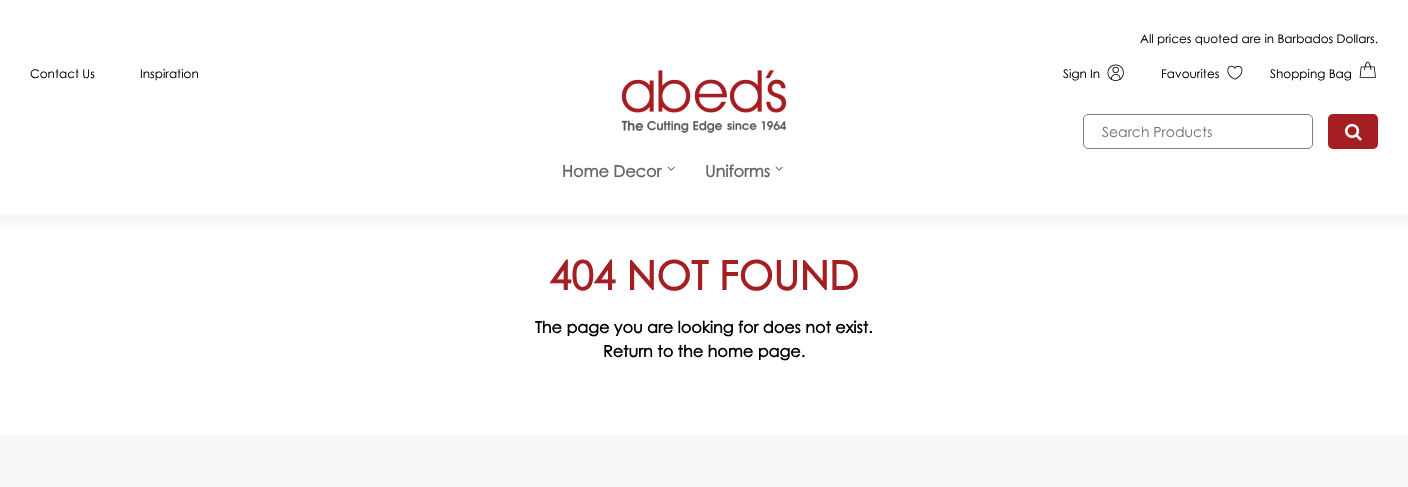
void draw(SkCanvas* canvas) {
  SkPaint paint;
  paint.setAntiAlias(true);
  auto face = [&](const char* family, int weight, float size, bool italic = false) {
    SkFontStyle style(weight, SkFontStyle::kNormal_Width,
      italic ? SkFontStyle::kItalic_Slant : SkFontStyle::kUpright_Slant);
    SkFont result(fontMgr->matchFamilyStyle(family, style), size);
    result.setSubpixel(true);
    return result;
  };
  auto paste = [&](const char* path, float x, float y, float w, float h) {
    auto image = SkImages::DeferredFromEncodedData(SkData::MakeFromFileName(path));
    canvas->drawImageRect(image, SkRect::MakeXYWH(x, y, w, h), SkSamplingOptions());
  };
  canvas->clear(0xffffffff);
  paste("img/1.png", 621, 70, 166, 63);
  paste("img/2.png", 1107, 64, 17, 17);
  paste("img/3.png", 1227, 65, 16, 15);
  paste("img/4.png", 1359, 61, 17, 17);
  paint.setStroke(true);
  paint.setStrokeWidth(1);
  paint.setColor(0xff828282);
  canvas->drawRoundRect(SkRect::MakeXYWH(1083.5f, 114.5f, 229, 34), 4.5f, 4.5f, paint);
  paint.setStroke(false);
  paint.setColor(0xffa41e22);
  canvas->drawRoundRect(SkRect::MakeXYWH(1328, 114, 50, 35), 5, 5, paint);
  paste("img/5.png", 1345, 123, 17, 18);
  paste("img/6.png", 667, 166, 8, 5);
  paste("img/6.png", 775, 166, 8, 5);
  {
    const SkColor colors[] = {0xfff9f9f9, 0xfff7f6f6, 0xffffffff};
    const float stops[] = {0, 0.01f, 0.08f};
    const SkPoint ends[] = {{704, 214}, {704, 435}};
    paint.setShader(SkGradientShader::MakeLinear(ends, colors, stops, 3, SkTileMode::kClamp));
    paint.setAlpha(255);
  }
  canvas->drawRect(SkRect::MakeXYWH(0, 214, 1408, 13), paint);
  paint.setShader(nullptr);
  paint.setColor(0xfff8f8f8);
  canvas->drawRect(SkRect::MakeXYWH(0, 435, 1408, 52), paint);
  auto f0 = face("Century Gothic", 400, 12);
  paint.setColor(0xff000000);
  {
    const struct { const char* s; float x, y; } items[] = {
      {"Contact Us", 30, 78},
      {"Inspiration", 140, 78},
      {"All prices quoted are in Barbados Dollars.", 1140, 43},
      {"Sign In", 1063, 78},
      {"Favourites", 1161, 78},
      {"Shopping Bag", 1270, 78},
    };
    for (auto [s, x, y] : items) {
      canvas->drawString(s, x, y, f0, paint);
    }
  }
  auto f1 = face("Century Gothic", 400, 14);
  paint.setColor(0xff777777);
  canvas->drawString("Search Products", 1102, 137, f1, paint);
  auto f2 = face("Century Gothic", 700, 16);
  paint.setColor(0xff666666);
  canvas->drawString("Home Decor", 562, 177, f2, paint);
  canvas->drawString("Uniforms", 705, 177, f2, paint);
  auto f3 = face("Century Gothic", 700, 40);
  paint.setColor(0xffa41e22);
  canvas->drawString("404 NOT FOUND", 549, 290, f3, paint);
  paint.setColor(0xff000000);
  canvas->drawString("The page you are looking for does not exist.", 535, 333, f2, paint);
  canvas->drawString("Return to the home page.", 603, 357, f2, paint);
}
